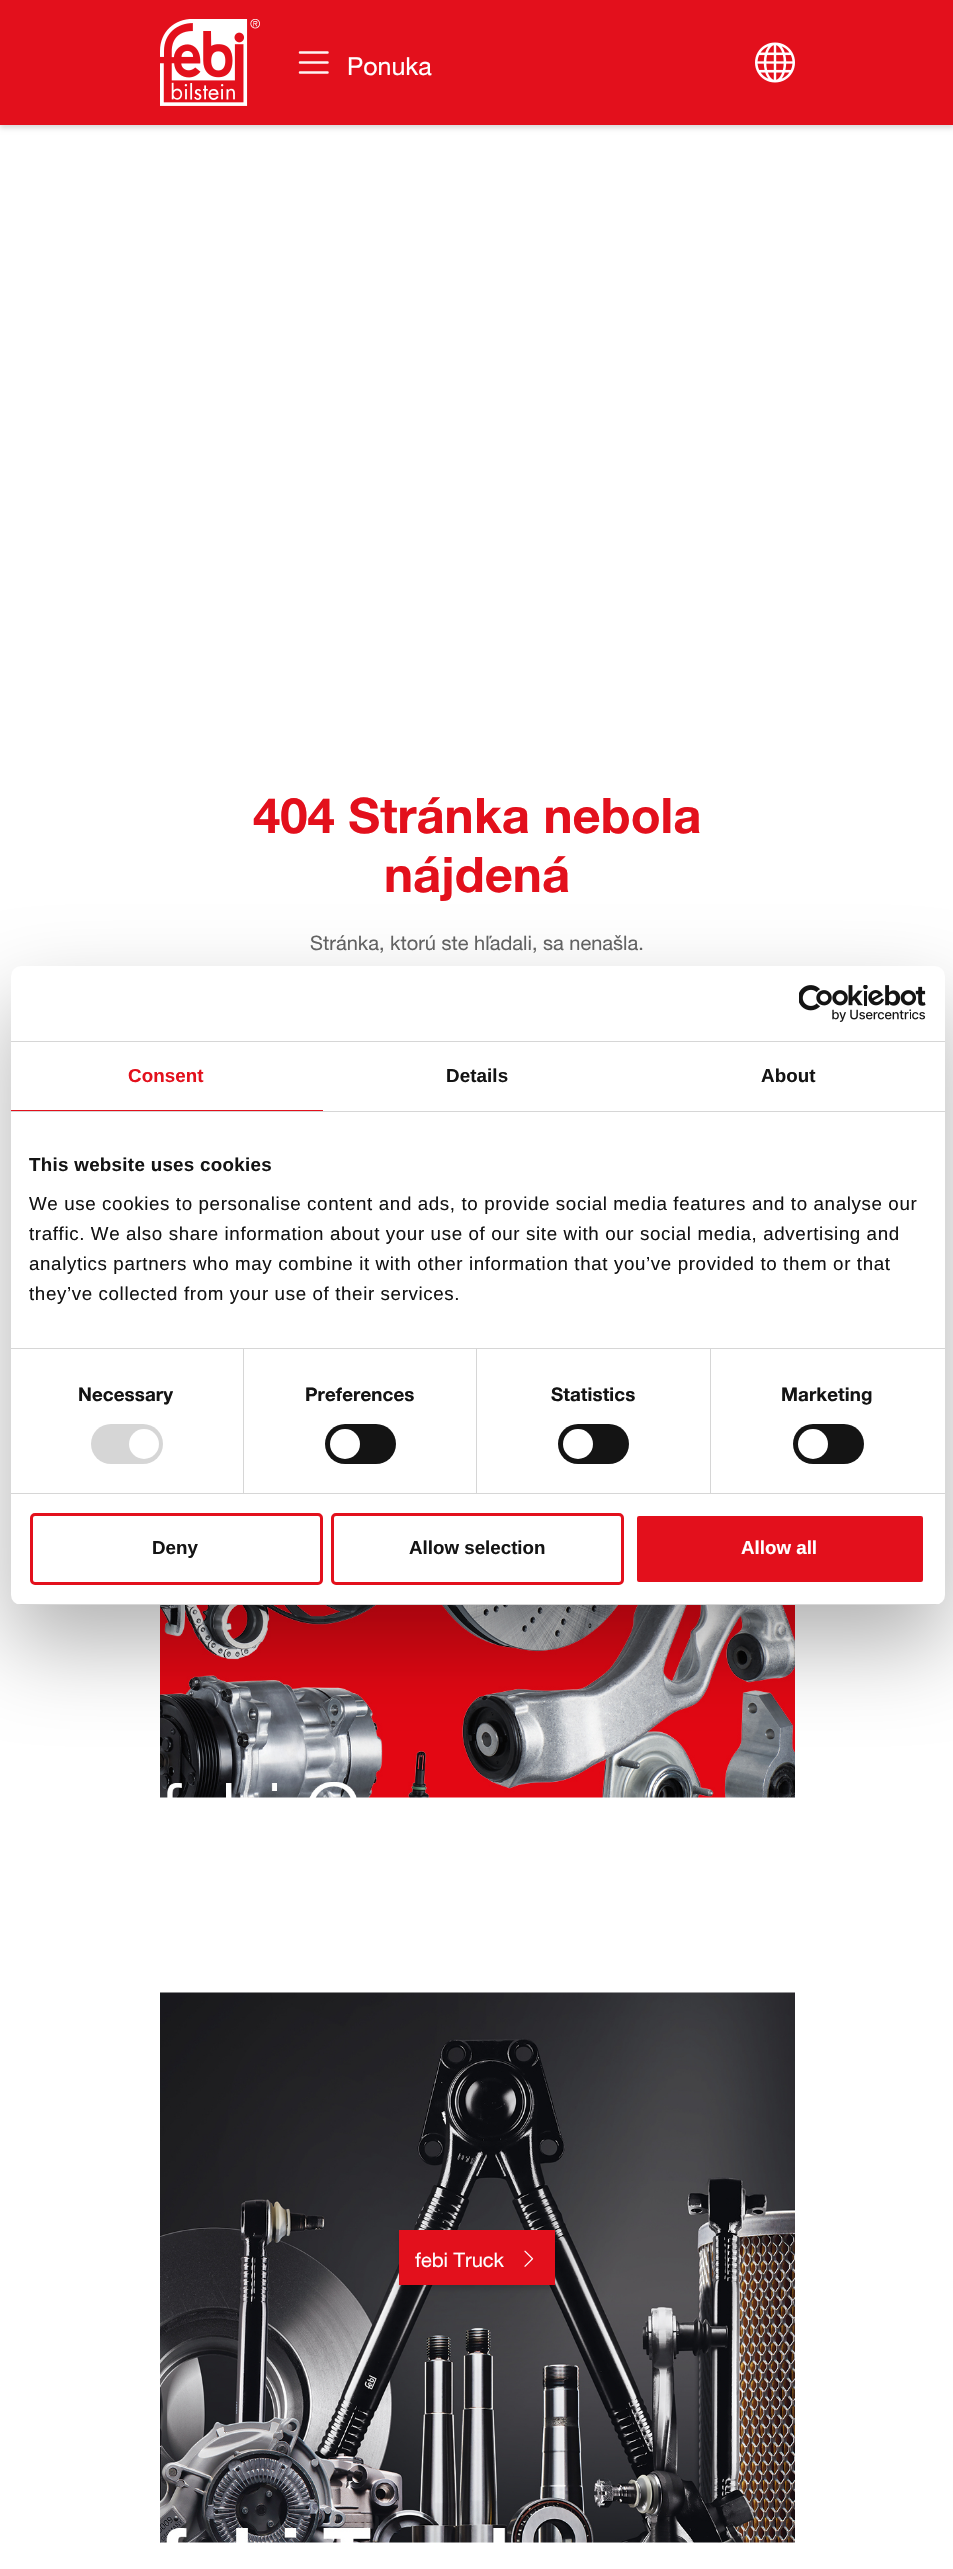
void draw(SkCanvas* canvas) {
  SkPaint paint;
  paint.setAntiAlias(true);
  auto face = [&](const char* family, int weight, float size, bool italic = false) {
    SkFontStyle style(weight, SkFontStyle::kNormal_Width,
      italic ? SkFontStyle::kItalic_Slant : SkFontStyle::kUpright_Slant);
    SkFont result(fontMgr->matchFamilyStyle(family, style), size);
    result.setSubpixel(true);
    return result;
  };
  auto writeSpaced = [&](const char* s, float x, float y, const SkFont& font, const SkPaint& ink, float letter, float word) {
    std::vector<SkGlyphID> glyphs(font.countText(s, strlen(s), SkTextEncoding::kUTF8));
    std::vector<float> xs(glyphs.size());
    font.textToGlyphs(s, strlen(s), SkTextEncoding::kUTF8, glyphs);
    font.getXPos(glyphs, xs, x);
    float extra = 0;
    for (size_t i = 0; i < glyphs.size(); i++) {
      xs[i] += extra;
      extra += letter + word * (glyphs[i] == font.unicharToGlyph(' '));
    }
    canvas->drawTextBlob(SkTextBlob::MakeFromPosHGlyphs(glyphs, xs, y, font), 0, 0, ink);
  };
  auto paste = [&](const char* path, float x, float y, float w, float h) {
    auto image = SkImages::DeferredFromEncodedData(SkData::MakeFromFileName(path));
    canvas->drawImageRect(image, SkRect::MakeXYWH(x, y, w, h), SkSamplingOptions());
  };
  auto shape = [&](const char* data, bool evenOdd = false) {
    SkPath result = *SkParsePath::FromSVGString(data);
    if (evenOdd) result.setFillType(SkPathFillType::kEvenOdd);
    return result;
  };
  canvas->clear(0xffffffff);
  paint.setColor(0x26000000);
  paint.setMaskFilter(SkMaskFilter::MakeBlur(kNormal_SkBlurStyle, 2.5f));
  canvas->drawRect(SkRect::MakeXYWH(0, 3, 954, 125), paint);
  paint.setMaskFilter(nullptr);
  paint.setColor(0xffe3101c);
  canvas->drawRect(SkRect::MakeXYWH(0, 0, 953, 125), paint);
  paste("img/1.png", 160, 19, 100, 87);
  paint.setStroke(true);
  paint.setStrokeWidth(2.5f);
  paint.setStrokeCap(SkPaint::kRound_Cap);
  paint.setColor(0xfffef3f4);
  canvas->drawPath(shape("M300 52.5H327.5M300 62.5H327.5M300 72.5H327.5"), paint);
  paste("img/2.png", 755, 42, 40, 41);
  paste("img/3.png", 160, 1605, 635, 193);
  paste("img/4.png", 160, 1992, 635, 551);
  paint.setStroke(false);
  paint.setColor(0x26000000);
  paint.setMaskFilter(SkMaskFilter::MakeBlur(kNormal_SkBlurStyle, 2.5f));
  canvas->drawRect(SkRect::MakeXYWH(399, 2233, 156, 55), paint);
  paint.setMaskFilter(nullptr);
  paint.setColor(0xffe3101c);
  canvas->drawRect(SkRect::MakeXYWH(399, 2230, 156, 55), paint);
  paste("img/5.png", 524, 2250, 10, 17);
  paint.setColor(0x4d000000);
  paint.setMaskFilter(SkMaskFilter::MakeBlur(kNormal_SkBlurStyle, 42.5f));
  canvas->drawRoundRect(SkRect::MakeXYWH(11, 1006, 934, 639), 10, 10, paint);
  paint.setMaskFilter(nullptr);
  paint.setColor(0xffffffff);
  canvas->drawRoundRect(SkRect::MakeXYWH(11, 966, 934, 639), 10, 10, paint);
  paint.setColor(0xffd6d6d6);
  canvas->drawRect(SkRect::MakeXYWH(11, 1041, 934, 1), paint);
  paste("img/6.png", 799, 985, 127, 37);
  {
    const struct { float x, y, w, h; SkColor color; } items[] = {
      {11, 1111, 934, 1, 0xffd6d6d6},
      {11, 1110, 312, 1, 0xffe3101c},
      {11, 1348, 934, 1, 0xffd6d6d6},
      {11, 1493, 934, 1, 0xffd6d6d6},
      {243, 1349, 1, 144, 0xffd6d6d6},
    };
    for (auto [x, y, w, h, color] : items) {
      paint.setColor(color);
      canvas->drawRect(SkRect::MakeXYWH(x, y, w, h), paint);
    }
  }
  canvas->drawRoundRect(SkRect::MakeXYWH(91, 1424, 72, 40), 20, 20, paint);
  paint.setColor(0xffffffff);
  canvas->drawCircle(144, 1444, 15, paint);
  paint.setColor(0xffd6d6d6);
  canvas->drawRect(SkRect::MakeXYWH(476, 1349, 1, 144), paint);
  paint.setColor(0xff141414);
  canvas->drawRoundRect(SkRect::MakeXYWH(325, 1424, 71, 40), 20, 20, paint);
  paint.setColor(0xffffffff);
  canvas->drawCircle(345, 1444, 15, paint);
  paint.setColor(0xffd6d6d6);
  canvas->drawRect(SkRect::MakeXYWH(710, 1349, 1, 144), paint);
  paint.setColor(0xff141414);
  canvas->drawRoundRect(SkRect::MakeXYWH(558, 1424, 71, 40), 20, 20, paint);
  paint.setColor(0xffffffff);
  canvas->drawCircle(578, 1444, 15, paint);
  paint.setColor(0xff141414);
  canvas->drawRoundRect(SkRect::MakeXYWH(793, 1424, 71, 40), 20, 20, paint);
  paint.setColor(0xffffffff);
  canvas->drawCircle(813, 1444, 15, paint);
  canvas->save();
  canvas->clipPath(shape("M21 966H935C940.5 966 945 970.5 945 976V1595C945 1600.5 940.5 1605 935 1605H21C15.5 1605 11 1600.5 11 1595V976C11 970.5 15.5 966 21 966Z"), true);
  paint.setColor(0xffd6d6d6);
  canvas->drawRect(SkRect::MakeXYWH(11, 1604, 934, 1), paint);
  canvas->restore();
  paint.setStroke(true);
  paint.setStrokeWidth(3);
  paint.setStrokeCap(SkPaint::kButt_Cap);
  paint.setColor(0xffe3101c);
  canvas->drawRoundRect(SkRect::MakeXYWH(31.5f, 1514.5f, 290, 69), 3.5f, 3.5f, paint);
  canvas->drawRoundRect(SkRect::MakeXYWH(332.5f, 1514.5f, 290, 69), 3.5f, 3.5f, paint);
  paint.setStroke(false);
  canvas->drawRoundRect(SkRect::MakeXYWH(635.5f, 1514.5f, 289, 69), 3.5f, 3.5f, paint);
  paint.setStroke(true);
  paint.setColor(0xffffffff);
  canvas->drawRoundRect(SkRect::MakeXYWH(635.5f, 1514.5f, 289, 69), 3.5f, 3.5f, paint);
  auto f0 = face("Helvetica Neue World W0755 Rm", 400, 25);
  paint.setStroke(false);
  canvas->drawString("Ponuka", 347, 75, f0, paint);
  auto f1 = face("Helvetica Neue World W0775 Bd", 700, 49);
  paint.setColor(0xffe3101c);
  canvas->drawString("404 Stránka nebola", 253, 833, f1, paint);
  canvas->drawString("nájdená", 384, 892, f1, paint);
  auto f2 = face("Helvetica Neue World W0755 Rm", 400, 20);
  paint.setColor(0xff626262);
  canvas->drawString("Stránka, ktorú ste hľadali, sa nenašla.", 310, 950, f2, paint);
  paint.setColor(0xffffffff);
  canvas->drawString("febi Truck", 415, 2267, f2, paint);
  auto f3 = face("Liberation Sans", 700, 18.75f);
  paint.setColor(0xffe3101c);
  writeSpaced("Consent", 128, 1082, f3, paint, 0.1f, 0);
  paint.setColor(0xff141414);
  writeSpaced("Details", 446, 1082, f3, paint, 0.1f, 0);
  writeSpaced("About", 761, 1082, f3, paint, 0.1f, 0);
  writeSpaced("This website uses cookies", 29, 1171, f3, paint, 0.3f, 0);
  auto f4 = face("Liberation Sans", 400, 18.75f);
  {
    const struct { const char* s; float x, y; } items[] = {
      {"We use cookies to personalise content and ads, to provide social media features and to analyse our", 29, 1210},
      {"traffic. We also share information about your use of our site with our social media, advertising and", 29, 1240},
      {"analytics partners who may combine it with other information that you’ve provided to them or that", 29, 1270},
      {"they’ve collected from your use of their services.", 29, 1300},
    };
    for (auto [s, x, y] : items) {
      writeSpaced(s, x, y, f4, paint, 0.62f, 0);
    }
  }
  auto f5 = face("Helvetica Neue World W0775 Bd", 700, 18.75f);
  {
    const struct { const char* s; float x, y; } items[] = {
      {"Necessary", 78, 1401},
      {"Preferences", 305, 1401},
      {"Statistics", 551, 1401},
      {"Marketing", 781, 1401},
    };
    for (auto [s, x, y] : items) {
      writeSpaced(s, x, y, f5, paint, 0.1f, 0);
    }
  }
  canvas->drawString("Deny", 152, 1554, f3, paint);
  canvas->drawString("Allow selection", 409, 1554, f3, paint);
  paint.setColor(0xffffffff);
  canvas->drawString("Allow all", 741, 1554, f3, paint);
}
